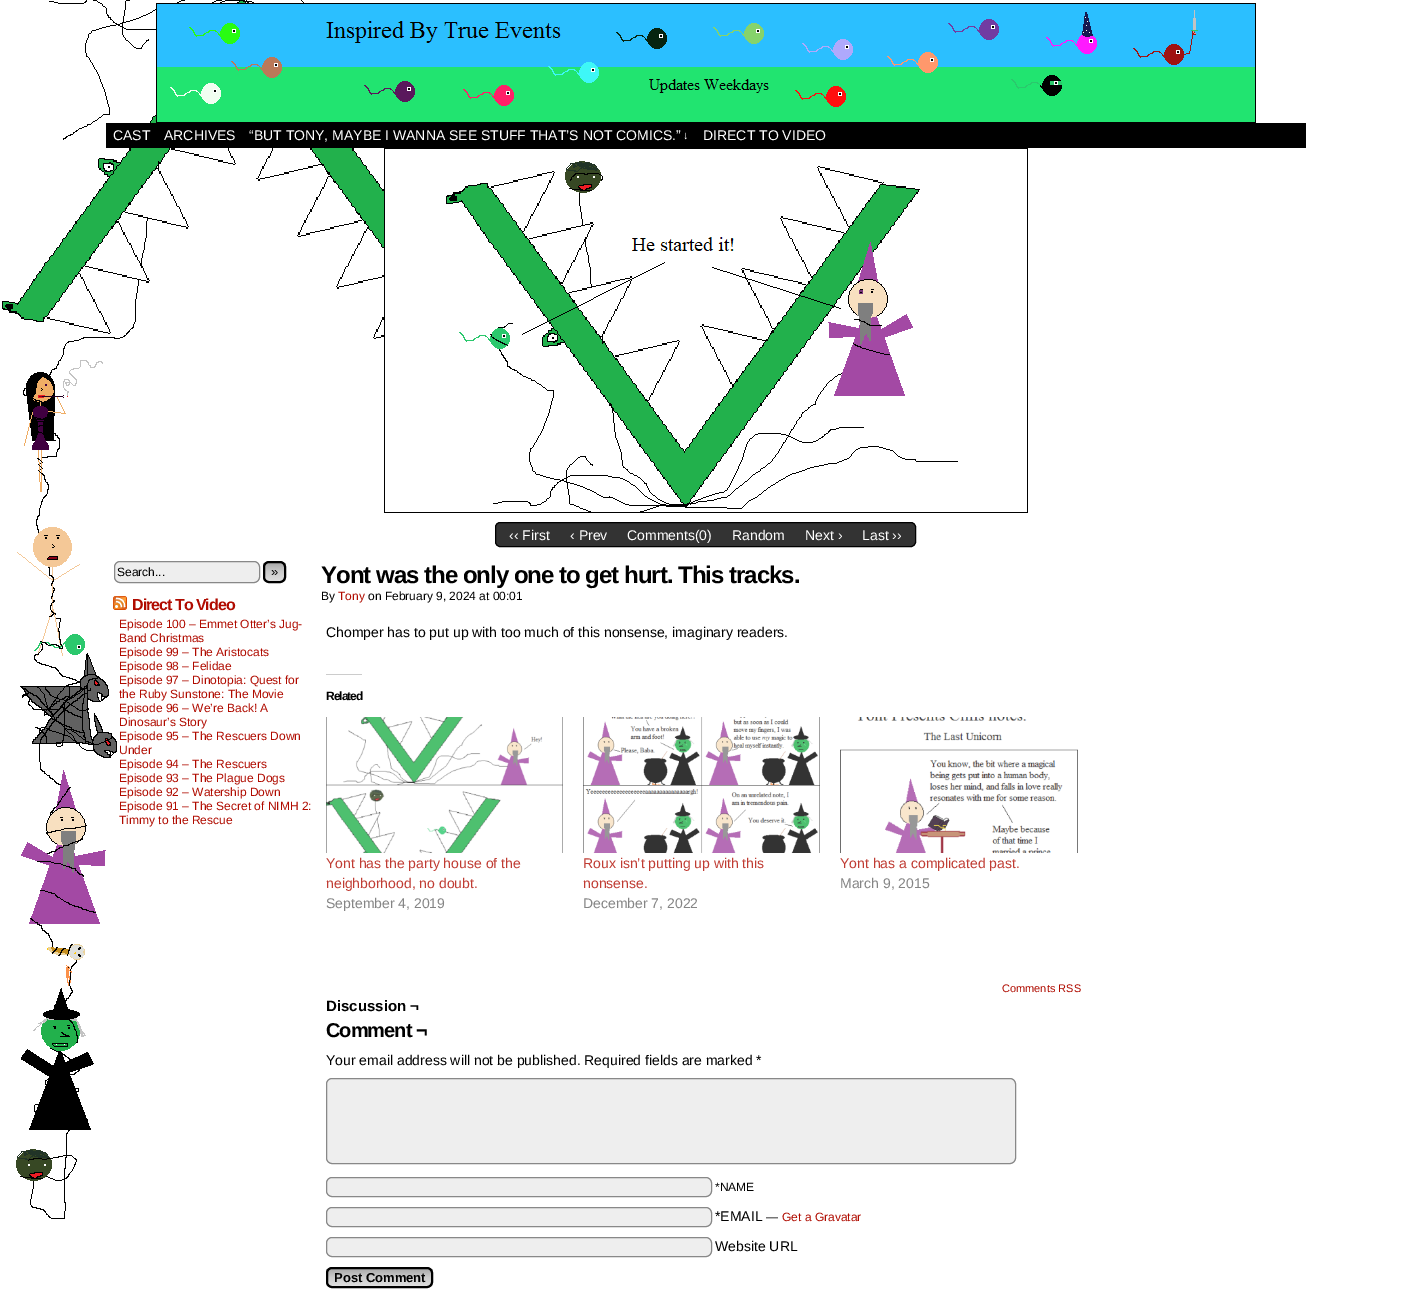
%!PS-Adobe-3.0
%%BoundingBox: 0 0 1411 1302
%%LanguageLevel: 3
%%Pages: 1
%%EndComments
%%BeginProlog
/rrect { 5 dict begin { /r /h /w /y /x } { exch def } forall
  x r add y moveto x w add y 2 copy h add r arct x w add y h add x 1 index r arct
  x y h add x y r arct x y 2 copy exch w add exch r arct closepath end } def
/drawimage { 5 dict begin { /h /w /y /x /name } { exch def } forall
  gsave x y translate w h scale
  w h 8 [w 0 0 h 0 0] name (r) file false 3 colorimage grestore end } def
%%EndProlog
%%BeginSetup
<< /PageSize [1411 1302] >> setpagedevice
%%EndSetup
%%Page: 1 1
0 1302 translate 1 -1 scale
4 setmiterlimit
1 setgray
0 0 1411 1302 rectfill
(images/1.raw) 2 0 509 1219 drawimage
(images/2.raw) 156 3 1100 120 drawimage
0 setgray
106 123 1200 25 rectfill
(images/3.raw) 384 148 644 365 drawimage
0.2 setgray
495.5 522.5 420 24 4.5 rrect gsave fill grestore
0 setgray
stroke
0.933 setgray
114.5 561.5 145 21 5.5 rrect gsave fill grestore
0.533 setgray
stroke
gsave
263 561 23 22 6 rrect clip newpath
gsave newpath 263 563 moveto 286 563 lineto 286 581 lineto 263 581 lineto closepath clip newpath
<< /ShadingType 2 /ColorSpace /DeviceRGB /Coords [275 563 275 581] /Extend [true true] /Function << /FunctionType 3 /Domain [0 1] /Functions [<< /FunctionType 2 /Domain [0 1] /C0 [0.667 0.667 0.667] /C1 [0.8 0.8 0.8] /N 1 >> << /FunctionType 2 /Domain [0 1] /C0 [0.8 0.8 0.8] /C1 [0.867 0.867 0.867] /N 1 >>] /Bounds [0.5] /Encode [0 1 0 1] >> >> shfill grestore
grestore
0 setgray
2 setlinewidth
264 562 21 20 5 rrect stroke
(images/4.raw) 113 596 14 14 drawimage
0.8 setgray
326 674 36 1 rectfill
(images/5.raw) 326 717 237 136 drawimage
(images/6.raw) 583 717 237 136 drawimage
(images/7.raw) 840 717 238 136 drawimage
0.933 setgray
326.5 1078.5 689 85 5.5 rrect gsave fill grestore
0.533 setgray
1 setlinewidth
stroke
0.933 setgray
326.5 1177.5 385 19 5.5 rrect gsave fill grestore
0.533 setgray
stroke
0.933 setgray
326.5 1207.5 385 19 5.5 rrect gsave fill grestore
0.533 setgray
stroke
0.933 setgray
326.5 1237.5 385 19 5.5 rrect gsave fill grestore
0.533 setgray
stroke
gsave
326 1267 107 21 6 rrect clip newpath
gsave newpath 326 1269 moveto 433 1269 lineto 433 1286 lineto 326 1286 lineto closepath clip newpath
<< /ShadingType 2 /ColorSpace /DeviceRGB /Coords [380 1269 380 1286] /Extend [true true] /Function << /FunctionType 3 /Domain [0 1] /Functions [<< /FunctionType 2 /Domain [0 1] /C0 [0.667 0.667 0.667] /C1 [0.8 0.8 0.8] /N 1 >> << /FunctionType 2 /Domain [0 1] /C0 [0.8 0.8 0.8] /C1 [0.867 0.867 0.867] /N 1 >>] /Bounds [0.5] /Encode [0 1 0 1] >> >> shfill grestore
grestore
0 setgray
2 setlinewidth
327 1268 105 19 5 rrect stroke
/LiberationSans-Regular [14 0 0 -14 0 0] selectfont
1 setgray
113 140 moveto (CAST) show
164 140 moveto (ARCHIVES) show
249 140 moveto (“BUT TONY, MAYBE I WANNA SEE STUFF THAT’S NOT COMICS.”) show
/LiberationSans-Regular [11 0 0 -11 0 0] selectfont
683 139 moveto (↓) show
/LiberationSans-Regular [14 0 0 -14 0 0] selectfont
703 140 moveto (DIRECT TO VIDEO) show
509 540 moveto (‹‹ First) show
570 540 moveto (‹ Prev) show
627 540 moveto (Comments\(0\)) show
732 540 moveto (Random) show
805 540 moveto (Next ›) show
862 540 moveto (Last ››) show
/LiberationSans-Regular [12 0 0 -12 0 0] selectfont
0 setgray
117 576 moveto (Search...) show
/LiberationSans-Regular [13 0 0 -13 0 0] selectfont
271 576 moveto (») show
/LiberationSans-Bold [16 0 0 -16 0 0] selectfont
0.69 0.043 0 setrgbcolor
132 610 moveto -1 0 (Direct To Video) ashow
/LiberationSans-Regular [12 0 0 -12 0 0] selectfont
119 628 moveto (Episode 100 – Emmet Otter’s Jug-) show
119 642 moveto (Band Christmas) show
119 656 moveto (Episode 99 – The Aristocats) show
119 670 moveto (Episode 98 – Felidae) show
119 684 moveto (Episode 97 – Dinotopia: Quest for) show
119 698 moveto (the Ruby Sunstone: The Movie) show
119 712 moveto (Episode 96 – We’re Back! A) show
119 726 moveto (Dinosaur’s Story) show
119 740 moveto (Episode 95 – The Rescuers Down) show
119 754 moveto (Under) show
119 768 moveto (Episode 94 – The Rescuers) show
119 782 moveto (Episode 93 – The Plague Dogs) show
119 796 moveto (Episode 92 – Watership Down) show
119 810 moveto (Episode 91 – The Secret of NIMH 2:) show
119 824 moveto (Timmy to the Rescue) show
/LiberationSans-Bold [24 0 0 -24 0 0] selectfont
0 setgray
321 583 moveto -1 0 (Yont was the only one to get hurt. This tracks.) ashow
/LiberationSans-Regular [12 0 0 -12 0 0] selectfont
321 600 moveto (By) show
0.69 0.043 0 setrgbcolor
338 600 moveto (Tony) show
0 setgray
368 600 moveto (on February 9, 2024 at 00:01) show
/LiberationSans-Regular [14 0 0 -14 0 0] selectfont
326 637 moveto (Chomper has to put up with too much of this nonsense, imaginary readers.) show
/LiberationSans-Bold [12 0 0 -12 0 0] selectfont
326 700 moveto -1 0 (Related) ashow
/LiberationSans-Regular [14 0 0 -14 0 0] selectfont
0.753 0.235 0.2 setrgbcolor
326 868 moveto (Yont has the party house of the) show
326 888 moveto (neighborhood, no doubt.) show
0.522 setgray
326 908 moveto (September 4, 2019) show
0.753 0.235 0.2 setrgbcolor
583 868 moveto (Roux isn’t putting up with this) show
583 888 moveto (nonsense.) show
0.522 setgray
583 908 moveto (December 7, 2022) show
0.753 0.235 0.2 setrgbcolor
840 868 moveto (Yont has a complicated past.) show
0.522 setgray
840 888 moveto (March 9, 2015) show
/LiberationSans-Regular [11 0 0 -11 0 0] selectfont
0.69 0.043 0 setrgbcolor
1002 992 moveto (Comments RSS) show
/LiberationSans-Bold [15 0 0 -15 0 0] selectfont
0 setgray
326 1011 moveto (Discussion ¬) show
/LiberationSans-Bold [20 0 0 -20 0 0] selectfont
326 1037 moveto -1 0 (Comment ¬) ashow
/LiberationSans-Regular [14 0 0 -14 0 0] selectfont
326 1065 moveto (Your email address will not be published. Required fields are marked *) show
/LiberationSans-Regular [12 0 0 -12 0 0] selectfont
715 1191 moveto (*NAME) show
/LiberationSans-Regular [14 0 0 -14 0 0] selectfont
715 1221 moveto (*EMAIL) show
/LiberationSans-Regular [12 0 0 -12 0 0] selectfont
766 1221 moveto (—) show
0.69 0.043 0 setrgbcolor
782 1221 moveto (Get a Gravatar) show
/LiberationSans-Regular [14 0 0 -14 0 0] selectfont
0 setgray
715 1251 moveto (Website URL) show
/LiberationSans-Bold [13 0 0 -13 0 0] selectfont
334 1282 moveto (Post Comment) show
showpage
%%EOF
